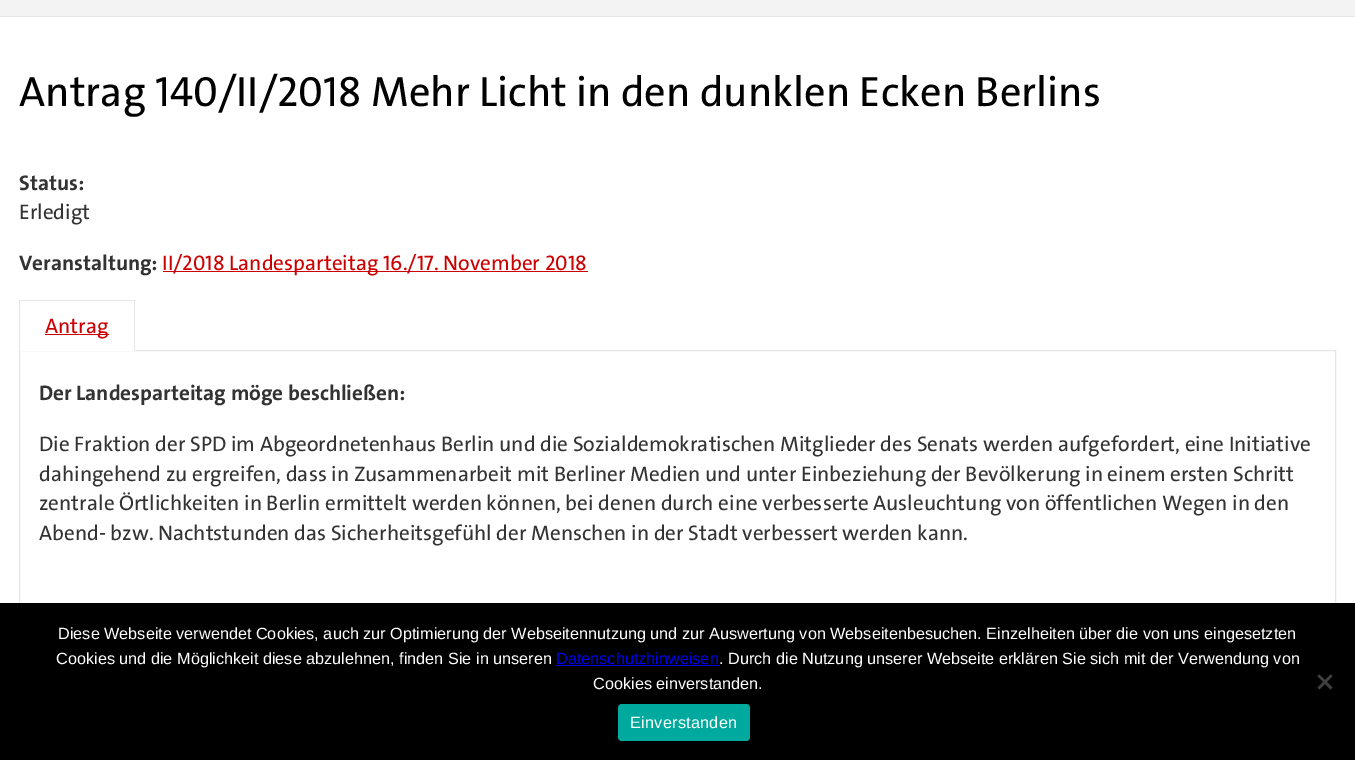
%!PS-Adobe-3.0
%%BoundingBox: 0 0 1355 760
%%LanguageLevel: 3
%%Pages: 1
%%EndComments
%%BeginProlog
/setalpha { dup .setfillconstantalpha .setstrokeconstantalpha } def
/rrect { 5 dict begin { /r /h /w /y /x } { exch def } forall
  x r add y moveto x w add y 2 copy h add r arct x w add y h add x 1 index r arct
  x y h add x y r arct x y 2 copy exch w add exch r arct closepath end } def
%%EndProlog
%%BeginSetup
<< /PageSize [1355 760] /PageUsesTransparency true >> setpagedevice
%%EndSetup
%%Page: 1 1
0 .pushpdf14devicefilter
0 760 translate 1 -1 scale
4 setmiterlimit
1 setgray
0 0 1355 760 rectfill
0.953 setgray
0 0 1355 16 rectfill
0.898 setgray
0 16 1355 1 rectfill
0.8 0 0 setrgbcolor
163 271 425 1 rectfill
0.902 setgray
19.5 350.5 1316 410 rectstroke
1 setgray
19 350 116 1 rectfill
0.902 setgray
newpath 19 300 moveto 135 300 lineto 134 301 lineto 20 301 lineto closepath fill
0.1 setalpha
0 setgray
newpath 135 300 moveto 135 351 lineto 134 351 lineto 134 301 lineto closepath fill
newpath 19 351 moveto 19 300 lineto 20 301 lineto 20 351 lineto closepath fill
1 setalpha
0.8 0 0 setrgbcolor
45 334 64 1 rectfill
0 setgray
0 603 1355 157 rectfill
0 0 0.933 setrgbcolor
556 665 163 1 rectfill
0.251 setgray
newpath 1330.5 674.5 moveto 1332.5 676 lineto 1319.5 689.5 lineto 1317.5 687.5 lineto closepath fill
newpath 1317.5 676 moveto 1319.5 674.5 lineto 1332.5 687.5 lineto 1330.5 689.5 lineto closepath fill
0 0.663 0.616 setrgbcolor
618 704 132 37 4 rrect fill
/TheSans-Medium [42.5 0 0 -42.5 0 0] selectfont
0 setgray
19 106 moveto (Antrag 140/II/2018 Mehr Licht in den dunklen Ecken Berlins) show
/TheSans-Bold [21.25 0 0 -21.25 0 0] selectfont
0.2 setgray
19 190 moveto (Status:) show
/TheSans-Medium [21.25 0 0 -21.25 0 0] selectfont
19 219 moveto (Erledigt) show
/TheSans-Bold [21.25 0 0 -21.25 0 0] selectfont
19 270 moveto (Veranstaltung:) show
/TheSans-Medium [21.25 0 0 -21.25 0 0] selectfont
0.8 0 0 setrgbcolor
162 270 moveto (II/2018 Landesparteitag 16./17. November 2018) show
45 333 moveto (Antrag) show
/TheSans-Bold [21.25 0 0 -21.25 0 0] selectfont
0.2 setgray
39 400 moveto (Der Landesparteitag möge beschließen:) show
/TheSans-Medium [21.25 0 0 -21.25 0 0] selectfont
39 451 moveto (Die Fraktion der SPD im Abgeordnetenhaus Berlin und die Sozialdemokratischen Mitglieder des Senats werden aufgefordert, eine Initiative) show
39 481 moveto (dahingehend zu ergreifen, dass in Zusammenarbeit mit Berliner Medien und unter Einbeziehung der Bevölkerung in einem ersten Schritt) show
39 510 moveto (zentrale Örtlichkeiten in Berlin ermittelt werden können, bei denen durch eine verbesserte Ausleuchtung von öffentlichen Wegen in den) show
39 540 moveto (Abend- bzw. Nachtstunden das Sicherheitsgefühl der Menschen in der Stadt verbessert werden kann.) show
/LiberationSans-Regular [16.25 0 0 -16.25 0 0] selectfont
1 setgray
58 639 moveto (Diese Webseite verwendet Cookies, auch zur Optimierung der Webseitennutzung und zur Auswertung von Webseitenbesuchen. Einzelheiten über die von uns eingesetzten) show
56 664 moveto (Cookies und die Möglichkeit diese abzulehnen, finden Sie in unseren) show
0 0 0.933 setrgbcolor
556 664 moveto (Datenschutzhinweisen) show
1 setgray
719 664 moveto (. Durch die Nutzung unserer Webseite erklären Sie sich mit der Verwendung von) show
593 689 moveto (Cookies einverstanden.) show
630 728 moveto 0.25 0 (Einverstanden) ashow
.poppdf14devicefilter showpage
%%EOF
